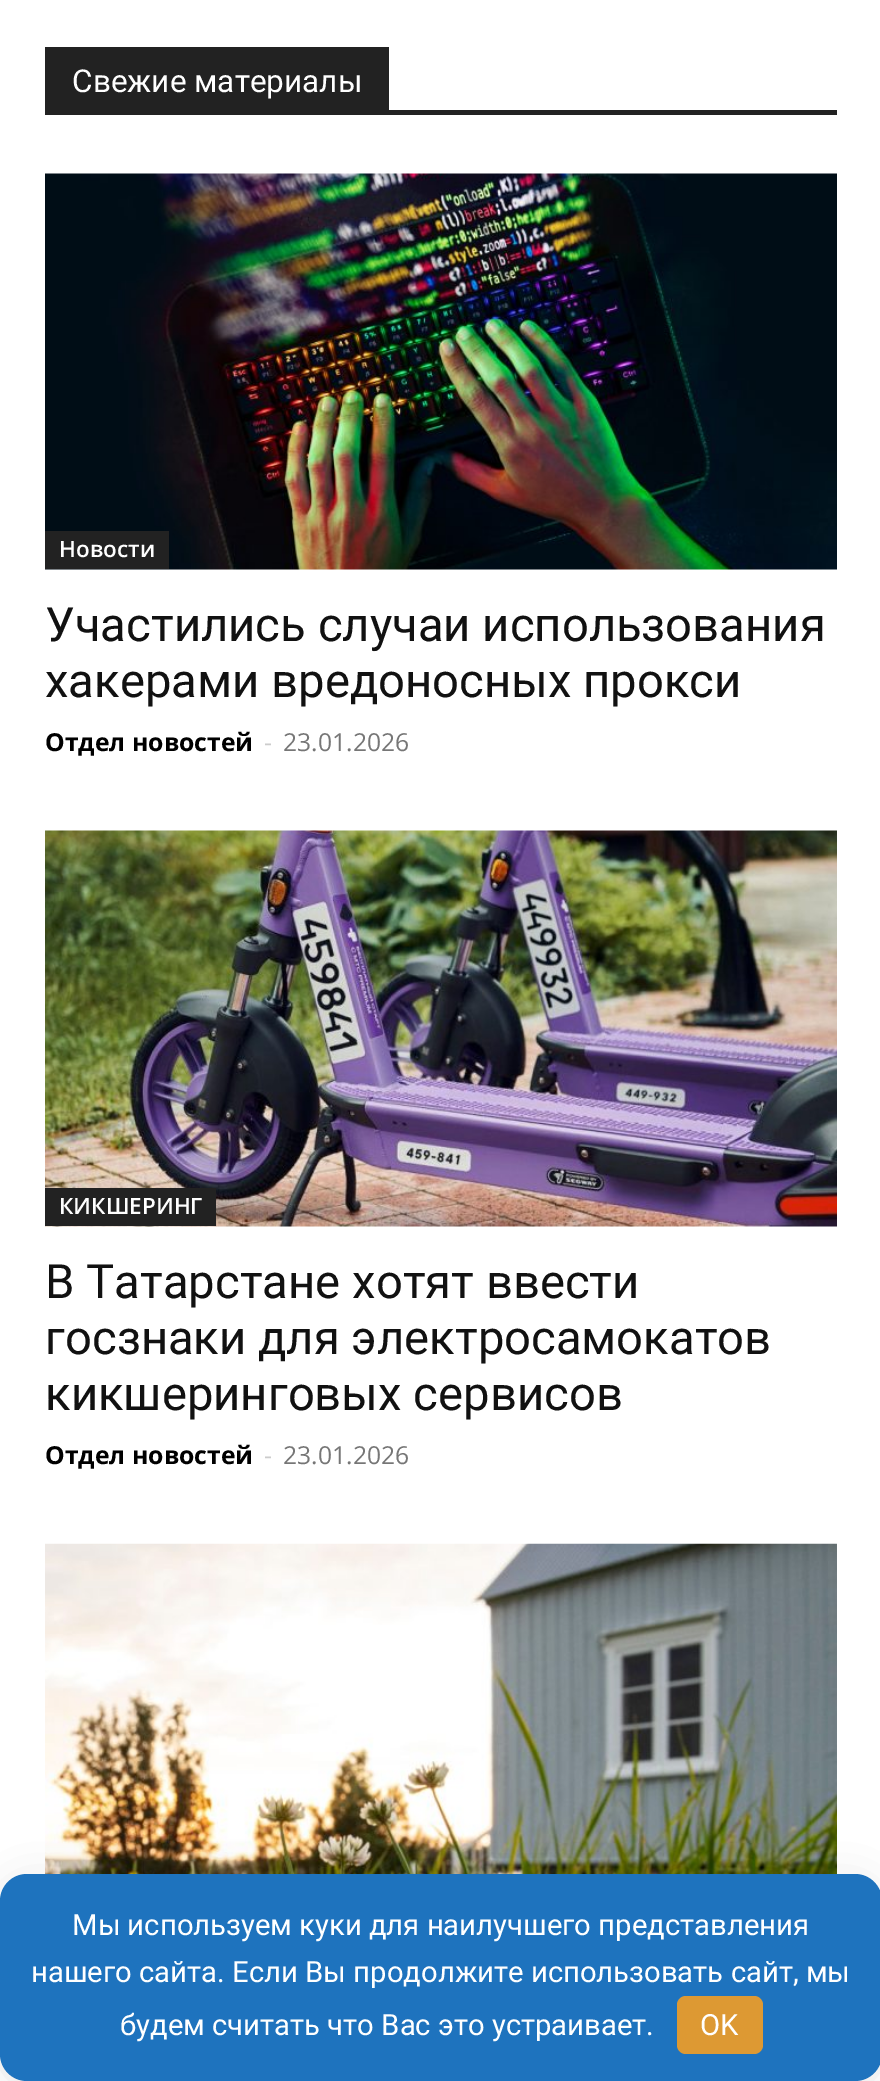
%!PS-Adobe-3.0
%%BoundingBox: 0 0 880 2081
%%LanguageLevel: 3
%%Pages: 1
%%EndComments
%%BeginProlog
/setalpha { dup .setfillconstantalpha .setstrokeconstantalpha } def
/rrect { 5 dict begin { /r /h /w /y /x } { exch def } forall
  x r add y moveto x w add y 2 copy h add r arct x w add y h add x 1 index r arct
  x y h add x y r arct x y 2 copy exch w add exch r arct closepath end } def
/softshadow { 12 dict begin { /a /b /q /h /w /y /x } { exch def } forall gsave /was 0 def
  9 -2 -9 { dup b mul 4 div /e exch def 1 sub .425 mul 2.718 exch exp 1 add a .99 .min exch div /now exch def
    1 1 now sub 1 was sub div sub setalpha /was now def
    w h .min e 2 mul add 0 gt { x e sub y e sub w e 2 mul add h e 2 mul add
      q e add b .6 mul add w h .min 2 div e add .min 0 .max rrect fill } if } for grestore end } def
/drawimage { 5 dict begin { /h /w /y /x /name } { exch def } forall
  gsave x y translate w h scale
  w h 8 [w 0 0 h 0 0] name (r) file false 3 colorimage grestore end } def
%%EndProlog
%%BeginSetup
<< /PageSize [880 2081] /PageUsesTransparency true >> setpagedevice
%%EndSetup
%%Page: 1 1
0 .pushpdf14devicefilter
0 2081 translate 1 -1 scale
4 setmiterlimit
1 setgray
0 0 880 2081 rectfill
0.133 setgray
45 110 792 5 rectfill
45 47 344 63 rectfill
(images/1.raw) 45 173 792 397 drawimage
45 531 124 38 rectfill
(images/2.raw) 45 830 792 397 drawimage
45 1188 171 38 rectfill
(images/3.raw) 45 1543 792 331 drawimage
0.161 0.173 0.22 setrgbcolor
11 1892 860 185 16 22.5 0.2 softshadow
0.118 0.451 0.745 setrgbcolor
0 1874 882 207 27 rrect fill
0.867 0.6 0.2 setrgbcolor
677 1996 86 58 9 rrect fill
/Roboto-Regular [31.5 0 0 -31.5 0 0] selectfont
1 setgray
72 92 moveto (Свежие материалы) show
/OpenSans-SemiBold [22.5 0 0 -22.5 0 0] selectfont
59 557 moveto (Новости) show
/Roboto-Regular [47.25 0 0 -47.25 0 0] selectfont
0.067 setgray
45 641 moveto (Участились случаи использования) show
45 697 moveto (хакерами вредоносных прокси) show
/OpenSans-Bold [24.75 0 0 -24.75 0 0] selectfont
0 setgray
45 751 moveto (Отдел новостей) show
/OpenSans-Regular [24.75 0 0 -24.75 0 0] selectfont
0.8 setgray
264 751 moveto (-) show
0.463 setgray
283 751 moveto (23.01.2026) show
/OpenSans-SemiBold [22.5 0 0 -22.5 0 0] selectfont
1 setgray
59 1214 moveto (КИКШЕРИНГ) show
/Roboto-Regular [47.25 0 0 -47.25 0 0] selectfont
0.067 setgray
45 1298 moveto (В Татарстане хотят ввести) show
45 1354 moveto (госзнаки для электросамокатов) show
45 1410 moveto (кикшеринговых сервисов) show
/OpenSans-Bold [24.75 0 0 -24.75 0 0] selectfont
0 setgray
45 1464 moveto (Отдел новостей) show
/OpenSans-Regular [24.75 0 0 -24.75 0 0] selectfont
0.8 setgray
264 1464 moveto (-) show
0.463 setgray
283 1464 moveto (23.01.2026) show
/Roboto-Regular [29.25 0 0 -29.25 0 0] selectfont
1 setgray
72 1935 moveto (Мы используем куки для наилучшего представления) show
31 1982 moveto (нашего сайта. Если Вы продолжите использовать сайт, мы) show
120 2035 moveto (будем считать что Вас это устраивает.) show
700 2035 moveto (OK) show
.poppdf14devicefilter showpage
%%EOF
